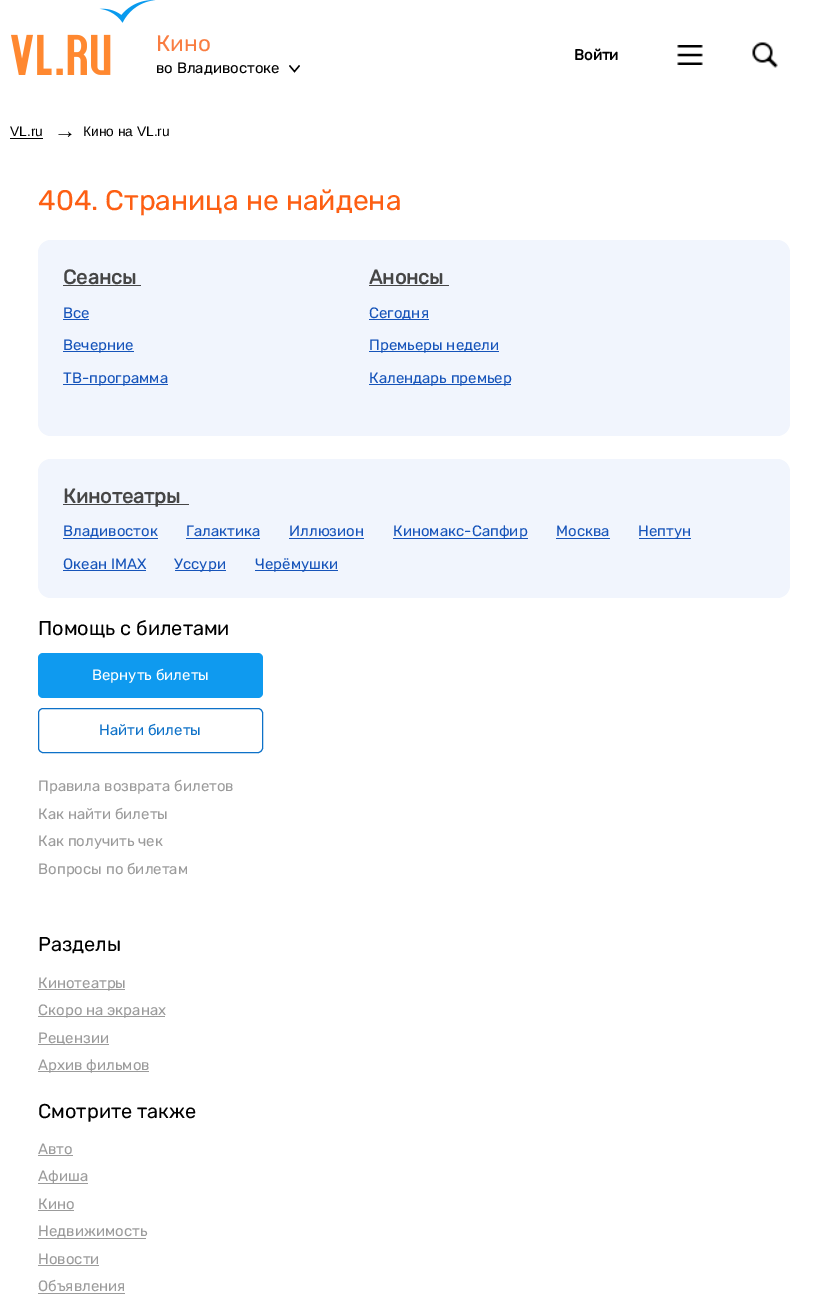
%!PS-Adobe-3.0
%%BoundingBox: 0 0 827 1308
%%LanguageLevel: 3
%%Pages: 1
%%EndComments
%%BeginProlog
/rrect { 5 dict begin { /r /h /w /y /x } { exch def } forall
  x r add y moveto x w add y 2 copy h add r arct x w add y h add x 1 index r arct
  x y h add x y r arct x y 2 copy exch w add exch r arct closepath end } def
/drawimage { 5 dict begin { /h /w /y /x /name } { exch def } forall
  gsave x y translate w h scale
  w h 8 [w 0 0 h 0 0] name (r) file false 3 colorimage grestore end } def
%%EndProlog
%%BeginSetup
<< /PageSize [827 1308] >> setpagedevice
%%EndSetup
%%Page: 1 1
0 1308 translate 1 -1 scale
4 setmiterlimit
1 setgray
0 0 827 1308 rectfill
(images/1.raw) 11 0 145 75 drawimage
0 setgray
1.3 setlinewidth
newpath 289.5 65.5 moveto 294.5 71.5 lineto 299.5 65.5 lineto stroke
(images/2.raw) 677 45 26 20 drawimage
(images/3.raw) 752 42 26 26 drawimage
10 138 33 1 rectfill
0.945 0.961 0.992 setrgbcolor
38 240 752 196 13 rrect fill
0.275 setgray
63 285 78 1 rectfill
0.086 0.329 0.729 setrgbcolor
63 319 26 1 rectfill
63 351 71 1 rectfill
63 384 105 1 rectfill
0.275 setgray
369 285 80 1 rectfill
0.086 0.329 0.729 setrgbcolor
369 319 60 1 rectfill
369 351 130 1 rectfill
369 384 142 1 rectfill
0.945 0.961 0.992 setrgbcolor
38 459 752 139 13 rrect fill
0.275 setgray
63 504 126 1 rectfill
0.086 0.329 0.729 setrgbcolor
63 538 95 1 rectfill
186 538 74 1 rectfill
289 538 75 1 rectfill
393 538 135 1 rectfill
556 538 54 1 rectfill
639 538 52 1 rectfill
63 570 83 1 rectfill
175 570 51 1 rectfill
255 570 83 1 rectfill
0.059 0.604 0.937 setrgbcolor
38 653 225 45 5 rrect fill
0.051 0.443 0.784 setrgbcolor
1 setlinewidth
38.5 708.5 224 44 4.5 rrect stroke
0.608 setgray
38 989 87 1 rectfill
38 1016 127 1 rectfill
38 1044 71 1 rectfill
38 1071 111 1 rectfill
38 1155 35 1 rectfill
38 1183 50 1 rectfill
38 1210 36 1 rectfill
38 1238 108 1 rectfill
38 1265 61 1 rectfill
38 1293 87 1 rectfill
/Rubik-Regular [22.5 0 0 -22.5 0 0] selectfont
0.976 0.49 0.255 setrgbcolor
156 51 moveto (Кино) show
/Rubik-Regular [15 0 0 -15 0 0] selectfont
0 setgray
156 73 moveto (во Владивостоке) show
/Rubik-Bold [15 0 0 -15 0 0] selectfont
574 60 moveto (Войти) show
/LiberationSans-Regular [13.75 0 0 -13.75 0 0] selectfont
10 136 moveto (VL.ru) show
/LiberationSans-Regular [22 0 0 -22 0 0] selectfont
54 138 moveto (→) show
/LiberationSans-Regular [13.75 0 0 -13.75 0 0] selectfont
83 136 moveto (Кино на VL.ru) show
/Rubik-Regular [28.3 0 0 -28.3 0 0] selectfont
0.992 0.373 0.075 setrgbcolor
38 210 moveto (404. Страница не найдена) show
/Rubik-Bold [20 0 0 -20 0 0] selectfont
0.275 setgray
63 284 moveto (Сеансы) show
/Rubik-Regular [15 0 0 -15 0 0] selectfont
0.086 0.329 0.729 setrgbcolor
63 318 moveto (Все) show
63 350 moveto (Вечерние) show
63 383 moveto (ТВ-программа) show
/Rubik-Bold [20 0 0 -20 0 0] selectfont
0.275 setgray
369 284 moveto (Анонсы) show
/Rubik-Regular [15 0 0 -15 0 0] selectfont
0.086 0.329 0.729 setrgbcolor
369 318 moveto (Сегодня) show
369 350 moveto (Премьеры недели) show
369 383 moveto (Календарь премьер) show
/Rubik-Bold [20 0 0 -20 0 0] selectfont
0.275 setgray
63 503 moveto (Кинотеатры) show
/Rubik-Regular [15 0 0 -15 0 0] selectfont
0.086 0.329 0.729 setrgbcolor
63 536 moveto (Владивосток) show
186 536 moveto (Галактика) show
289 536 moveto (Иллюзион) show
393 536 moveto (Киномакс-Сапфир) show
556 536 moveto (Москва) show
638 536 moveto (Нептун) show
63 569 moveto (Океан IMAX) show
174 569 moveto (Уссури) show
255 569 moveto (Черёмушки) show
/Rubik-Regular [20 0 0 -20 0 0] selectfont
0 setgray
38 635 moveto (Помощь с билетами) show
/Rubik-Regular [15 0 0 -15 0 0] selectfont
1 setgray
92 680 moveto (Вернуть билеты) show
0.051 0.443 0.784 setrgbcolor
99 735 moveto (Найти билеты) show
0.608 setgray
38 791 moveto (Правила возврата билетов) show
38 819 moveto (Как найти билеты) show
38 846 moveto (Как получить чек) show
38 874 moveto (Вопросы по билетам) show
/Rubik-Regular [20 0 0 -20 0 0] selectfont
0 setgray
38 951 moveto (Разделы) show
/Rubik-Regular [15 0 0 -15 0 0] selectfont
0.608 setgray
38 988 moveto (Кинотеатры) show
38 1015 moveto (Скоро на экранах) show
38 1043 moveto (Рецензии) show
38 1070 moveto (Архив фильмов) show
/Rubik-Regular [20 0 0 -20 0 0] selectfont
0 setgray
38 1118 moveto (Смотрите также) show
/Rubik-Regular [15 0 0 -15 0 0] selectfont
0.608 setgray
38 1154 moveto (Авто) show
38 1181 moveto (Афиша) show
38 1209 moveto (Кино) show
38 1236 moveto (Недвижимость) show
38 1264 moveto (Новости) show
38 1291 moveto (Объявления) show
showpage
%%EOF
